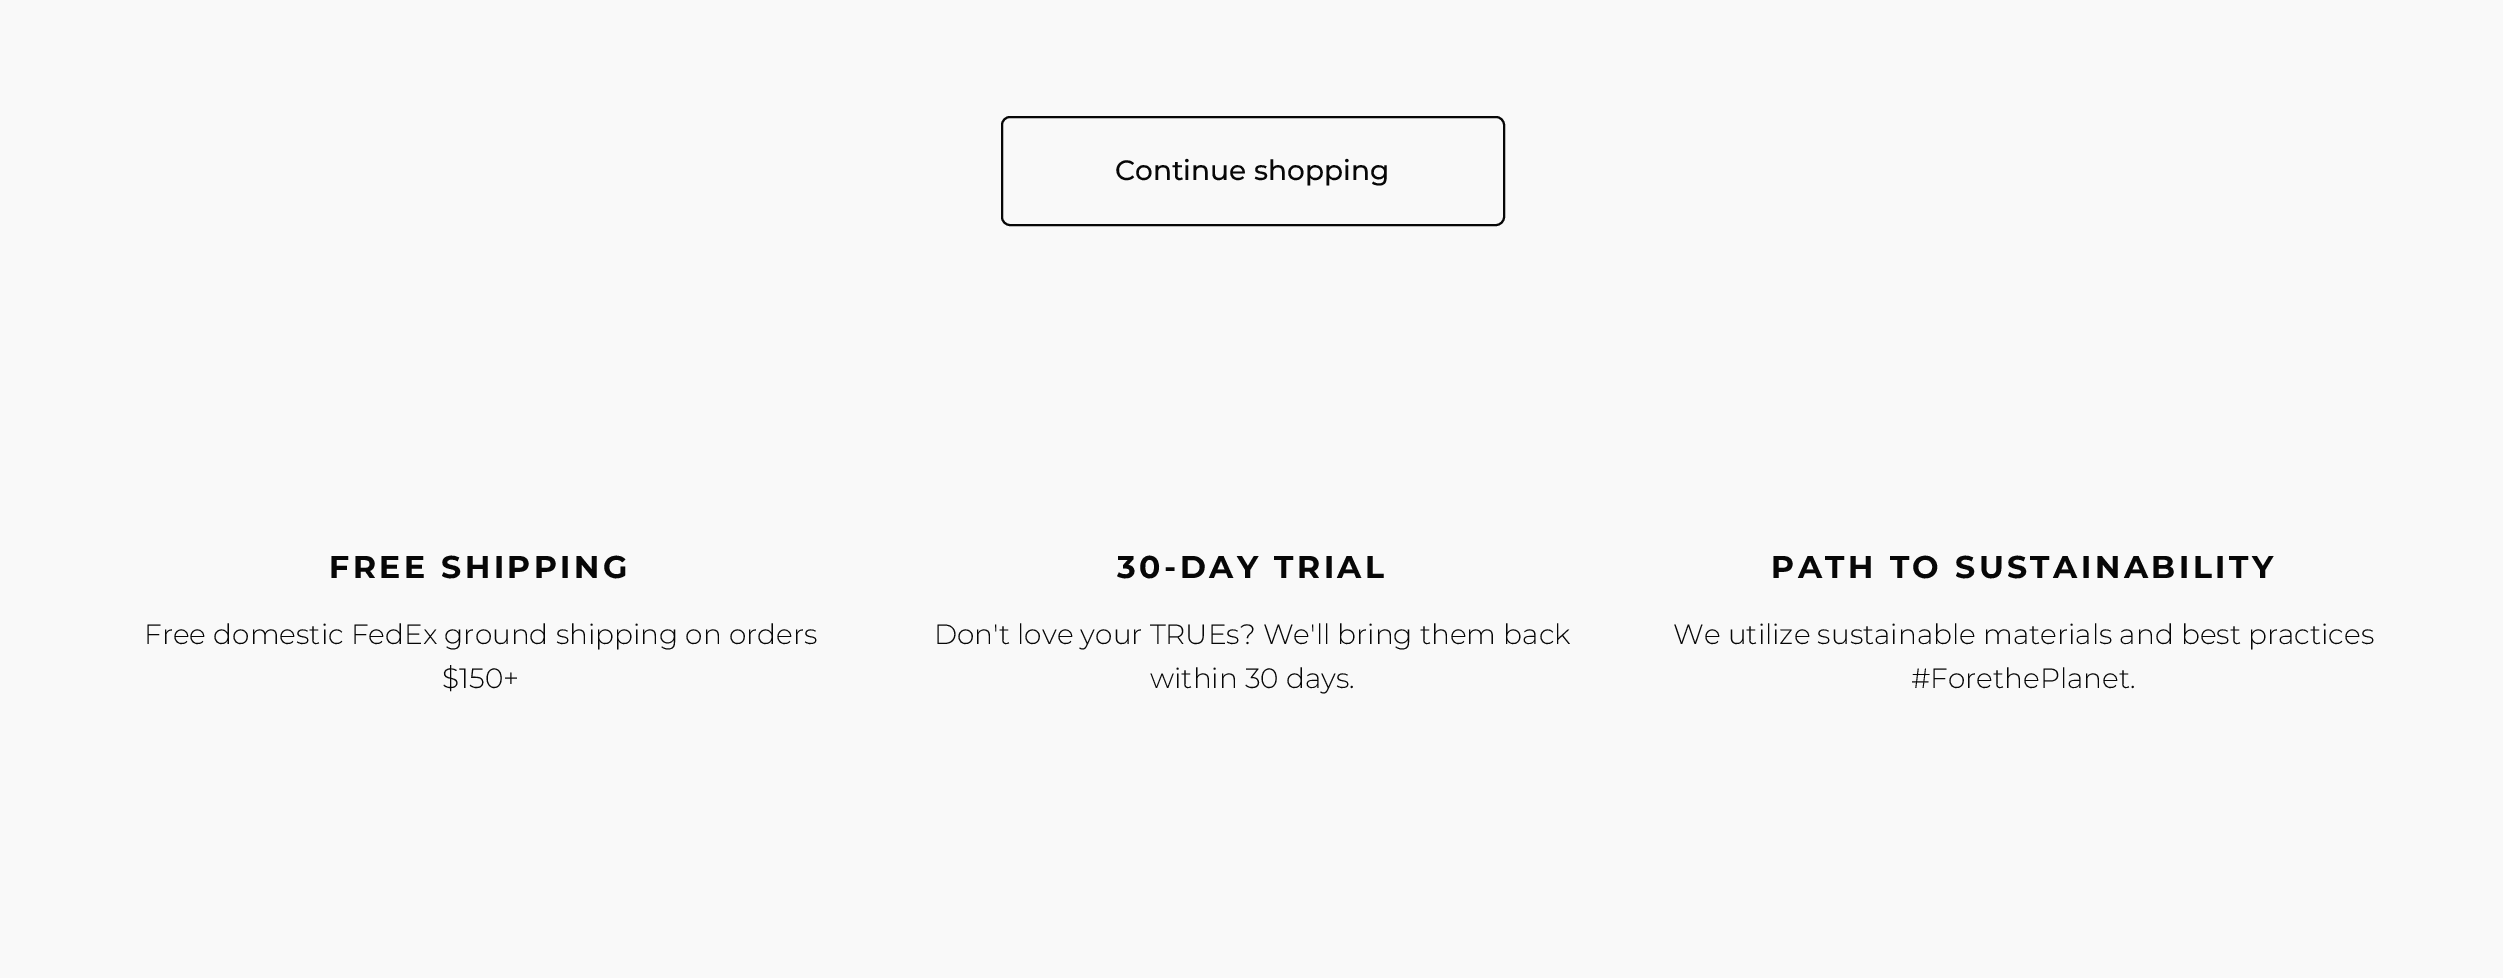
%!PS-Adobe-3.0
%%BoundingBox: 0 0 2503 978
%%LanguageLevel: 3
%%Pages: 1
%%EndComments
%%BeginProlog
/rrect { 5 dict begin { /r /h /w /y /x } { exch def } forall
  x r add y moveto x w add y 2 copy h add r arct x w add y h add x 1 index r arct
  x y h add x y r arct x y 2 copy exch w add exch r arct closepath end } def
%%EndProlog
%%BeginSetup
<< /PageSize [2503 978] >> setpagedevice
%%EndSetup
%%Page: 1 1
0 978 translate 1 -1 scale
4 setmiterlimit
0.976 setgray
0 0 2503 978 rectfill
0.027 setgray
2 setlinewidth
1002 117 502 108 8 rrect stroke
/Montserrat-Medium [28 0 0 -28 0 0] selectfont
1115 180 moveto (Continue shopping) show
/Montserrat-Bold [31.5 0 0 -31.5 0 0] selectfont
329 578 moveto 3.5 0 (FREE SHIPPING) ashow
/Montserrat-Light [28 0 0 -28 0 0] selectfont
144 644 moveto (Free domestic FedEx ground shipping on orders) show
442 688 moveto ($150+) show
/Montserrat-Bold [31.5 0 0 -31.5 0 0] selectfont
1117 578 moveto 3.5 0 (30-DAY TRIAL) ashow
/Montserrat-Light [28 0 0 -28 0 0] selectfont
934 644 moveto (Don't love your TRUEs? We'll bring them back) show
1150 688 moveto (within 30 days.) show
/Montserrat-Bold [31.5 0 0 -31.5 0 0] selectfont
1771 578 moveto 3.5 0 (PATH TO SUSTAINABILITY) ashow
/Montserrat-Light [28 0 0 -28 0 0] selectfont
1673 644 moveto (We utilize sustainable materials and best practices) show
1911 688 moveto (#ForethePlanet.) show
showpage
%%EOF
